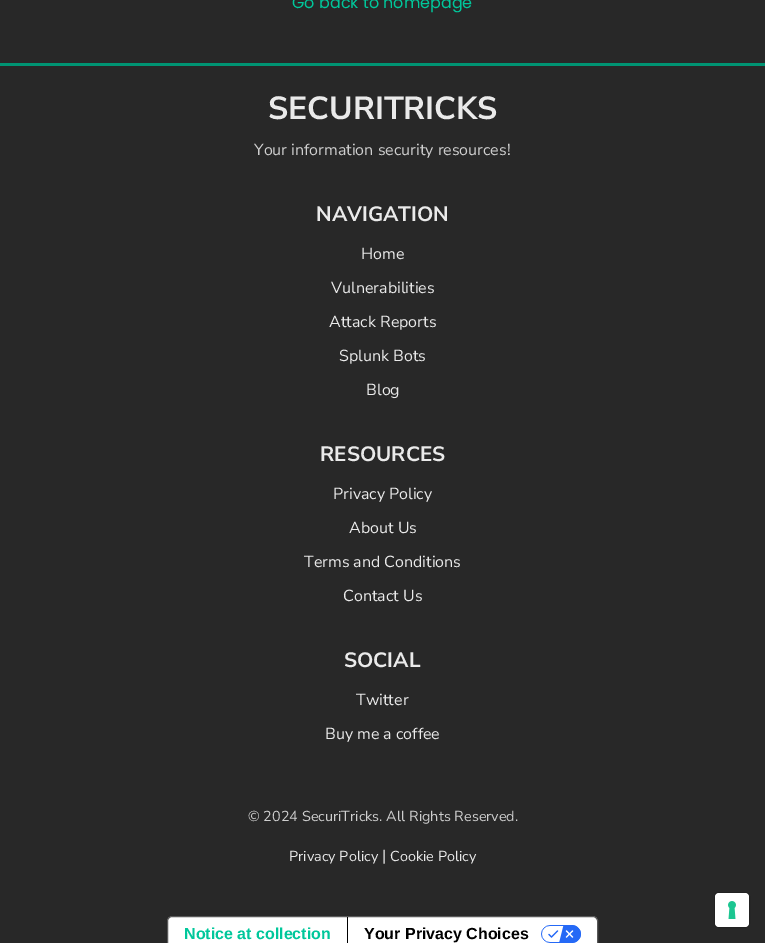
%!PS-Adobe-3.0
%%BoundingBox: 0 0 765 943
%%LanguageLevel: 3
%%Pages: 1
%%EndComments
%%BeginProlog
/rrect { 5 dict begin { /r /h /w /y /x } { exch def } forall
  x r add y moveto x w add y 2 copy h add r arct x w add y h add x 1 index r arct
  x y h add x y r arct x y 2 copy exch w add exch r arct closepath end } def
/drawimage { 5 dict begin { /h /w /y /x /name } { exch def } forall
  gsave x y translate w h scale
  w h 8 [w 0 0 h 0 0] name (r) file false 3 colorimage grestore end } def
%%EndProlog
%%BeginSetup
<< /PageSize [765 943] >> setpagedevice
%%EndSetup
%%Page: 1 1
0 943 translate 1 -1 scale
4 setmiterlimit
0.157 setgray
0 0 765 943 rectfill
0 0.58 0.451 setrgbcolor
0 63 765 3 rectfill
0.133 setgray
714.5 892.5 35 35 4.5 rrect stroke
1 setgray
715 893 34 34 4 rrect fill
(images/1.raw) 728 901 8 18 drawimage
167.5 916.5 430 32 4.5 rrect gsave fill grestore
0.349 setgray
stroke
0 setgray
347 917 1 26 rectfill
(images/2.raw) 541 925 40 18 drawimage
/Poppins-Regular [16 0 0 -16 0 0] selectfont
0 0.78 0.608 setrgbcolor
292 8 moveto (Go back to homepage) show
/NunitoSans-Bold [32 0 0 -32 0 0] selectfont
0.918 setgray
268 119 moveto (SECURITRICKS) show
/NunitoSans-Regular [16 0 0 -16 0 0] selectfont
0.812 setgray
254 155 moveto (Your information security resources!) show
/NunitoSans-Bold [20.75 0 0 -20.75 0 0] selectfont
0.918 setgray
316 221 moveto (NAVIGATION) show
/NunitoSans-Regular [16 0 0 -16 0 0] selectfont
361 259 moveto (Home) show
331 293 moveto (Vulnerabilities) show
329 327 moveto (Attack Reports) show
339 361 moveto (Splunk Bots) show
366 395 moveto (Blog) show
/NunitoSans-Bold [20.75 0 0 -20.75 0 0] selectfont
320 461 moveto (RESOURCES) show
/NunitoSans-Regular [16 0 0 -16 0 0] selectfont
333 499 moveto (Privacy Policy) show
349 533 moveto (About Us) show
304 567 moveto (Terms and Conditions) show
343 601 moveto (Contact Us) show
/NunitoSans-Bold [20.75 0 0 -20.75 0 0] selectfont
344 667 moveto (SOCIAL) show
/NunitoSans-Regular [16 0 0 -16 0 0] selectfont
356 705 moveto (Twitter) show
325 739 moveto (Buy me a coffee) show
/NunitoSans-Regular [14.4 0 0 -14.4 0 0] selectfont
0.812 setgray
248 821 moveto (© 2024 SecuriTricks. All Rights Reserved.) show
0.918 setgray
289 861 moveto (Privacy Policy) show
/NunitoSans-Regular [16 0 0 -16 0 0] selectfont
382 861 moveto (|) show
/NunitoSans-Regular [14.4 0 0 -14.4 0 0] selectfont
390 861 moveto (Cookie Policy) show
/LiberationSans-Bold [16 0 0 -16 0 0] selectfont
0 0.78 0.608 setrgbcolor
184 939 moveto (Notice at collection) show
0 setgray
364 939 moveto (Your Privacy Choices) show
showpage
%%EOF
